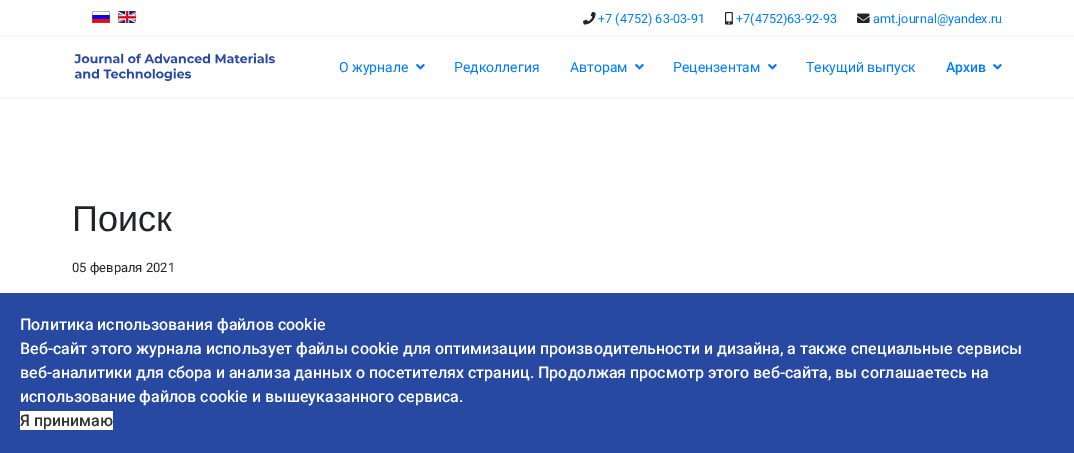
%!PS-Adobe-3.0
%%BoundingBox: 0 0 1074 453
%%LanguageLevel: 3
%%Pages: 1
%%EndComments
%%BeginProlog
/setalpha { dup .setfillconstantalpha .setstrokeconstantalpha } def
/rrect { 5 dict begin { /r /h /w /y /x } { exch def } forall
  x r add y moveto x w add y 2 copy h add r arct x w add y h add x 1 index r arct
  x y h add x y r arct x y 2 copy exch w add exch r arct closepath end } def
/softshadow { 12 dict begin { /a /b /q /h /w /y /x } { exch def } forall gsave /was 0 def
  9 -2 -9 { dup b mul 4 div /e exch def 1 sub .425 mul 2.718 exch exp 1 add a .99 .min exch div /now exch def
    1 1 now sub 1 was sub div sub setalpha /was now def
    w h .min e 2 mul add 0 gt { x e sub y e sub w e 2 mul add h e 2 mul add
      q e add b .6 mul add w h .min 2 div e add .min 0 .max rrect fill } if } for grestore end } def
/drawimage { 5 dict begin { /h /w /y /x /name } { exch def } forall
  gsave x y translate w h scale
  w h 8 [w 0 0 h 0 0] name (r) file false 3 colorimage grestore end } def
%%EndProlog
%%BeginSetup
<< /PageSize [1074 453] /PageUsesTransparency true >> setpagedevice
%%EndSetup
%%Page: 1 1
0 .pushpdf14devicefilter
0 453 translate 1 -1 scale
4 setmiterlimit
1 setgray
0 0 1074 453 rectfill
(images/1.raw) 92 11 18 12 drawimage
(images/2.raw) 118 11 18 12 drawimage
(images/3.raw) 583 12 13 13 drawimage
(images/4.raw) 725 12 8 13 drawimage
(images/5.raw) 857 13 13 10 drawimage
gsave
newpath 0 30 moveto 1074 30 lineto 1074 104 lineto 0 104 lineto closepath 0 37 moveto 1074 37 lineto 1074 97 lineto 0 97 lineto closepath eoclip newpath
0 setgray
0 37 1074 60 0 2 0.1 softshadow
grestore
(images/6.raw) 74 53 201 28 drawimage
(images/7.raw) 416 64 9 6 drawimage
(images/7.raw) 635 64 9 6 drawimage
(images/7.raw) 768 64 9 6 drawimage
(images/7.raw) 993 64 9 6 drawimage
0.153 0.286 0.631 setrgbcolor
0 293 1074 160 rectfill
1 setgray
20 411 93 19 rectfill
/Roboto-Regular [12.6 0 0 -12.6 0 0] selectfont
0 0.482 1 setrgbcolor
598 23 moveto (+7 \(4752\) 63-03-91) show
736 23 moveto (+7\(4752\)63-92-93) show
873 23 moveto (amt.journal@yandex.ru) show
/Roboto-Regular [14 0 0 -14 0 0] selectfont
339 72 moveto (О журнале) show
454 72 moveto (Редколлегия) show
570 72 moveto (Авторам) show
673 72 moveto (Рецензентам) show
806 72 moveto (Текущий выпуск) show
/Roboto-Medium [14 0 0 -14 0 0] selectfont
946 72 moveto (Архив) show
/LiberationSans-Regular [36 0 0 -36 0 0] selectfont
0.129 0.145 0.161 setrgbcolor
72 231 moveto (Поиск) show
/Roboto-Regular [13 0 0 -13 0 0] selectfont
72 272 moveto (05 февраля 2021) show
/Roboto-Medium [16 0 0 -16 0 0] selectfont
1 setgray
20 330 moveto (Политика использования файлов cookie) show
20 354 moveto (Веб-сайт этого журнала использует файлы cookie для оптимизации производительности и дизайна, а также специальные сервисы) show
20 378 moveto (веб-аналитики для сбора и анализа данных о посетителях страниц. Продолжая просмотр этого веб-сайта, вы соглашаетесь на) show
20 402 moveto (использование файлов cookie и вышеуказанного сервиса.) show
0.2 setgray
20 426 moveto (Я принимаю) show
.poppdf14devicefilter showpage
%%EOF
